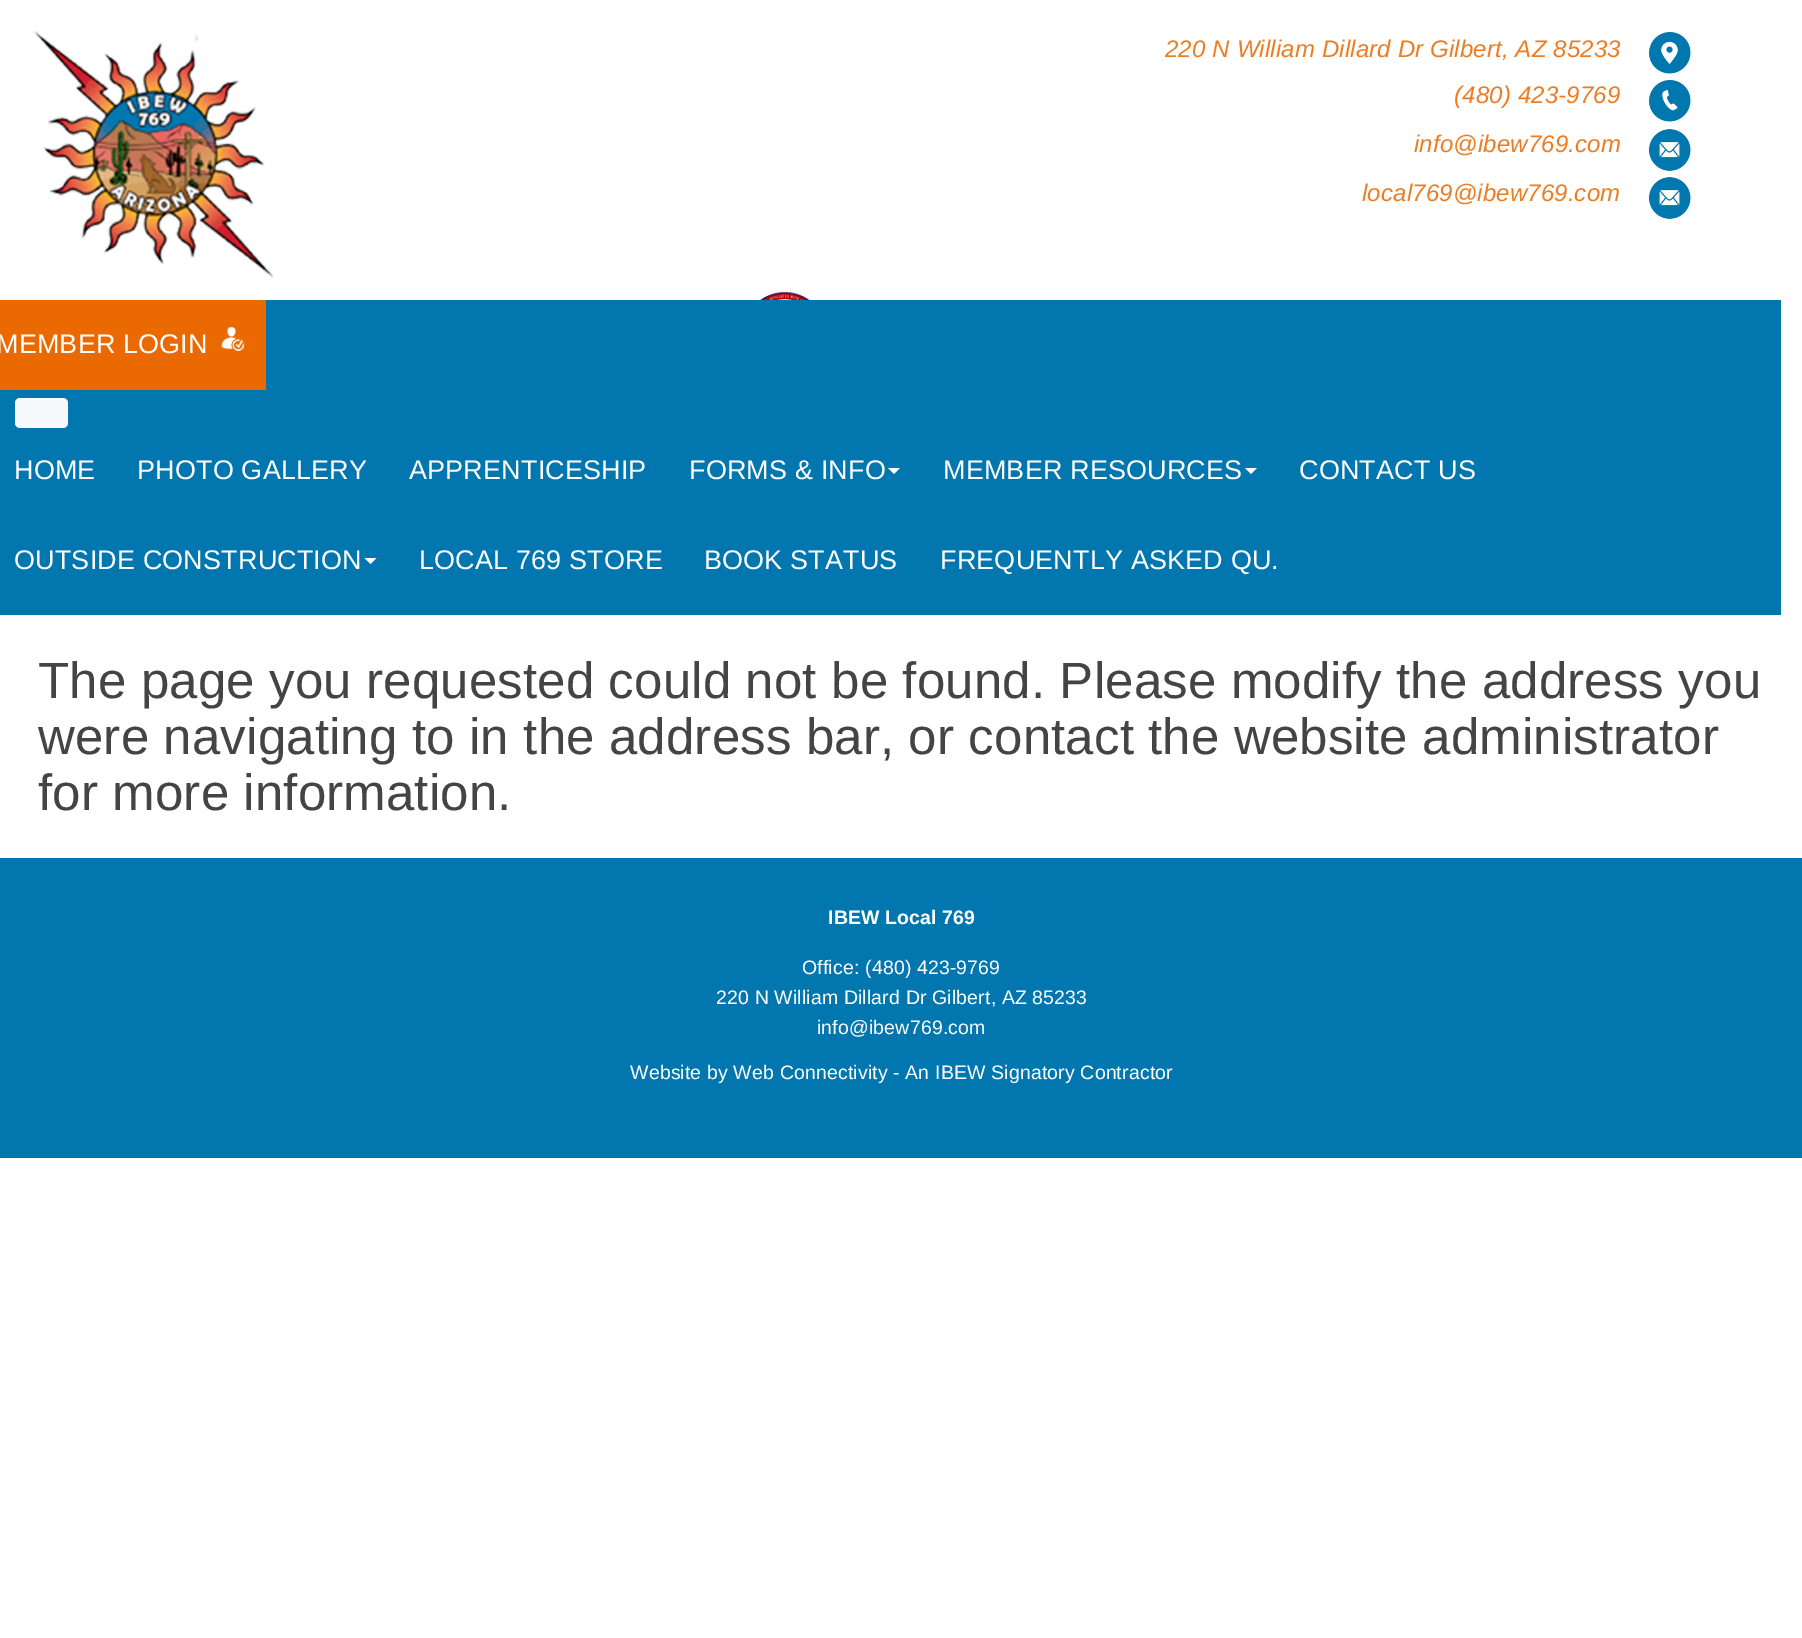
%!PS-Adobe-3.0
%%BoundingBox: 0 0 1802 1638
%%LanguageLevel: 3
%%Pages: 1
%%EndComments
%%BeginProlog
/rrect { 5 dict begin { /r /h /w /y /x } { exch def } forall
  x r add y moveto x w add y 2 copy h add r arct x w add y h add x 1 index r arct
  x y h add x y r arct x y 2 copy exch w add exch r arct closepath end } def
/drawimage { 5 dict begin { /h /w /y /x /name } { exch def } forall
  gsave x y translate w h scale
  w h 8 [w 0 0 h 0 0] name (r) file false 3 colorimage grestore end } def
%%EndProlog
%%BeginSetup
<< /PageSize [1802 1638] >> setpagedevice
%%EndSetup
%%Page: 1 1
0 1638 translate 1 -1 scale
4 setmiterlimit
1 setgray
0 0 1802 1638 rectfill
(images/1.raw) 33 31 241 247 drawimage
(images/2.raw) 760 291 50 9 drawimage
(images/3.raw) 1649 32 42 42 drawimage
(images/4.raw) 1649 80 42 42 drawimage
(images/5.raw) 1649 129 42 42 drawimage
(images/5.raw) 1649 177 42 42 drawimage
0.008 0.467 0.686 setrgbcolor
0 300 1781 315 rectfill
0.918 0.412 0 setrgbcolor
0 300 266 90 rectfill
(images/6.raw) 221 327 24 24 drawimage
0.973 0.976 0.98 setrgbcolor
15 398 53 30 5 rrect fill
1 setgray
newpath 888 468 moveto 900 468 lineto 894 474 lineto closepath fill
newpath 1245 468 moveto 1257 468 lineto 1251 474 lineto closepath fill
newpath 364.5 558 moveto 376.5 558 lineto 370.5 564 lineto closepath fill
0.008 0.467 0.686 setrgbcolor
0 858 1802 300 rectfill
/LiberationSans-Italic [24 0 0 -24 0 0] selectfont
0.929 0.49 0.133 setrgbcolor
1165 57 moveto 0.15 0 (220 N William Dillard Dr Gilbert, AZ 85233) ashow
1454 103 moveto 0.15 0 (\(480\) 423-9769) ashow
1414 152 moveto 0.15 0 (info@ibew769.com) ashow
1362 201 moveto 0.15 0 (local769@ibew769.com) ashow
/LiberationSans-Regular [27 0 0 -27 0 0] selectfont
1 setgray
-4 353 moveto 0.15 0 (MEMBER LOGIN) ashow
14 479 moveto 0.15 0 (HOME) ashow
137 479 moveto 0.15 0 (PHOTO GALLERY) ashow
409 479 moveto 0.15 0 (APPRENTICESHIP) ashow
689 479 moveto 0.15 0 (FORMS & INFO) ashow
943 479 moveto 0.15 0 (MEMBER RESOURCES) ashow
1299 479 moveto 0.15 0 (CONTACT US) ashow
14 569 moveto 0.15 0 (OUTSIDE CONSTRUCTION) ashow
419 569 moveto 0.15 0 (LOCAL 769 STORE) ashow
704 569 moveto 0.15 0 (BOOK STATUS) ashow
940 569 moveto 0.15 0 (FREQUENTLY ASKED QU.) ashow
/LiberationSans-Regular [51 0 0 -51 0 0] selectfont
0.267 setgray
38 698 moveto 0.15 0 (The page you requested could not be found. Please modify the address you) ashow
38 754 moveto 0.15 0 (were navigating to in the address bar, or contact the website administrator) ashow
38 810 moveto 0.15 0 (for more information.) ashow
/LiberationSans-Bold [19.5 0 0 -19.5 0 0] selectfont
1 setgray
828 924 moveto 0.15 0 (IBEW Local 769) ashow
/LiberationSans-Regular [19.5 0 0 -19.5 0 0] selectfont
802 974 moveto 0.15 0 (Office: \(480\) 423-9769) ashow
716 1004 moveto 0.15 0 (220 N William Dillard Dr Gilbert, AZ 85233) ashow
817 1034 moveto 0.15 0 (info@ibew769.com) ashow
630 1079 moveto 0.15 0 (Website by Web Connectivity - An IBEW Signatory Contractor) ashow
showpage
%%EOF
